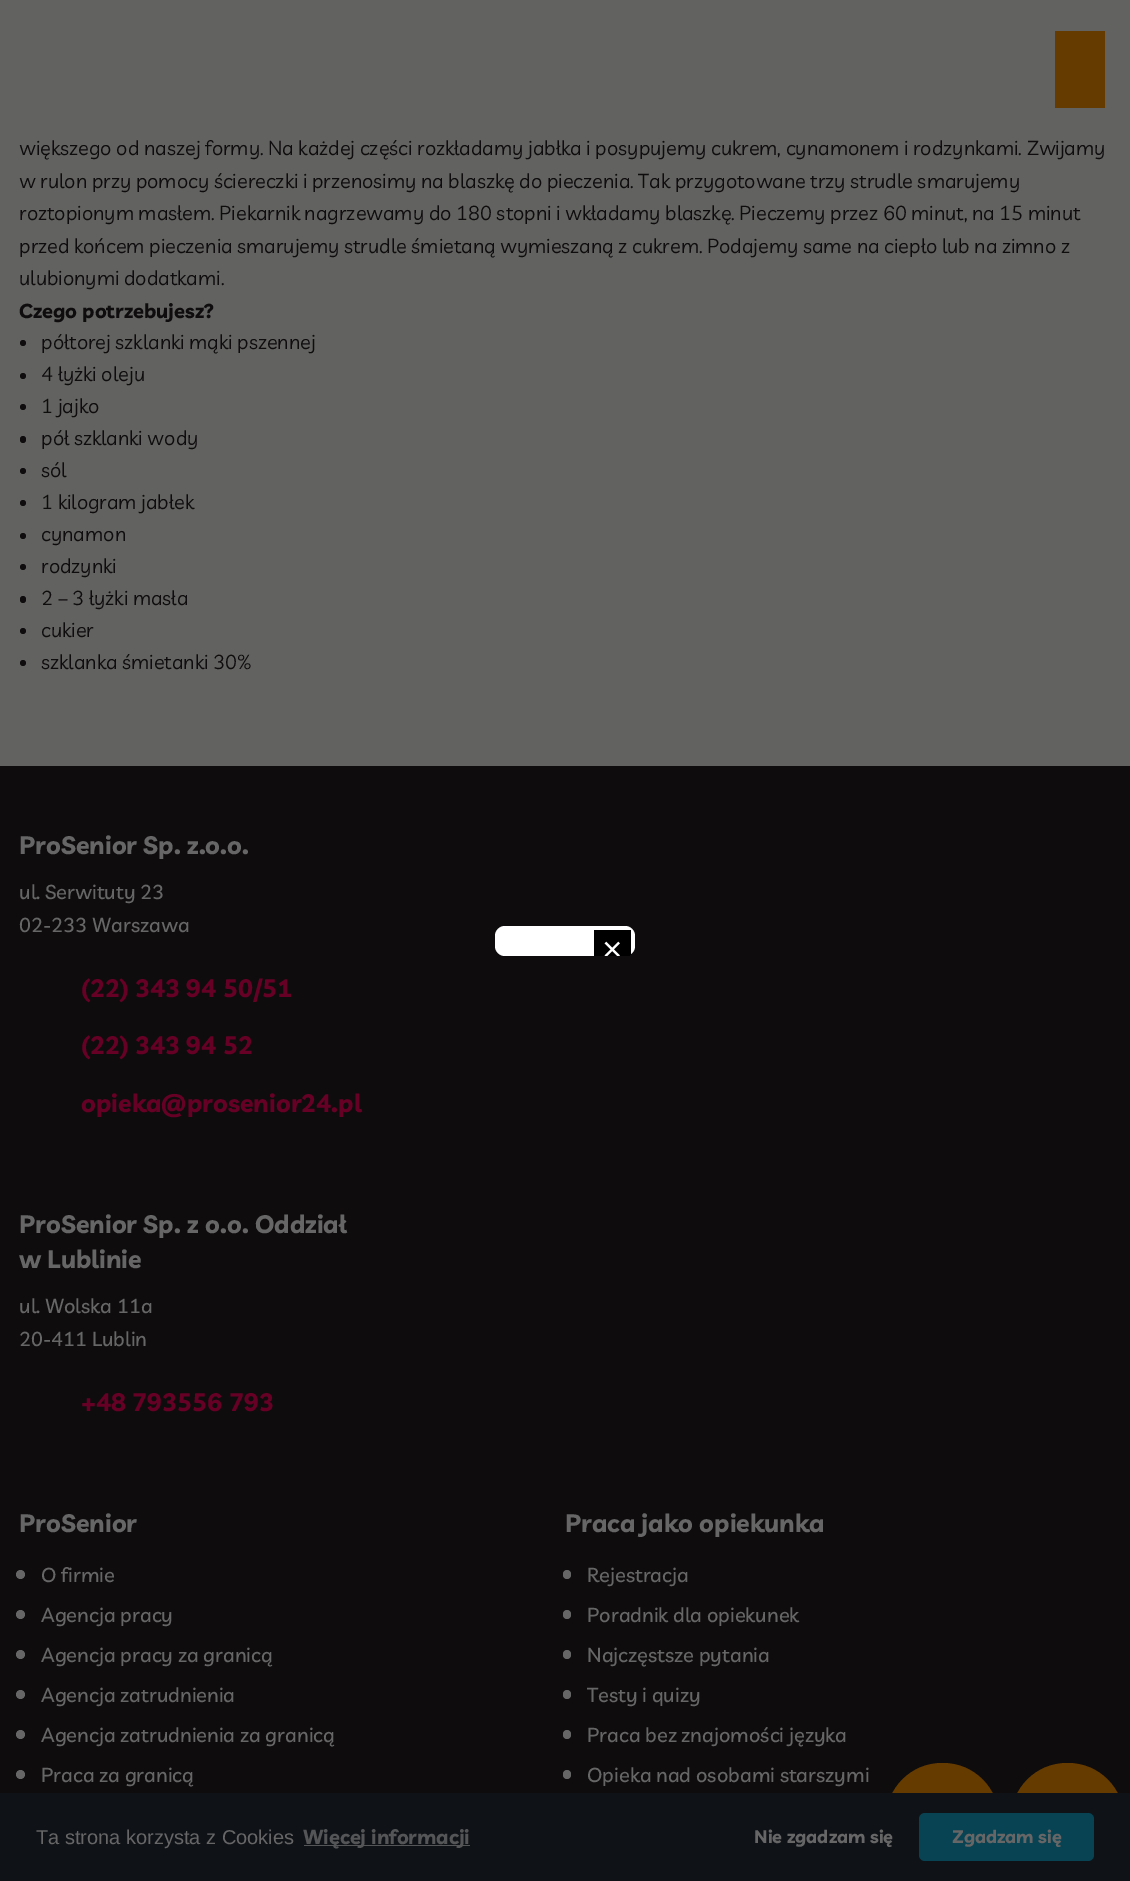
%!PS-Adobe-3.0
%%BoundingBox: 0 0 1130 1881
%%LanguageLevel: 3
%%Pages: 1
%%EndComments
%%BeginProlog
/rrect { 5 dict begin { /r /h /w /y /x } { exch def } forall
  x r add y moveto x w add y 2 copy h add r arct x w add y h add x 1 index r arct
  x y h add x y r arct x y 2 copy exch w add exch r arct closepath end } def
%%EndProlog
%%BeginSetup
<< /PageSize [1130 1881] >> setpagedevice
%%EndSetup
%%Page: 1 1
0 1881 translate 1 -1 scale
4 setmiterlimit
0.384 0.384 0.376 setrgbcolor
0 0 1130 1881 rectfill
0.4 0.231 0 setrgbcolor
1055 31 50 77 rectfill
0.055 0.047 0.051 setrgbcolor
newpath 23 343 3 0 360 arc closepath fill
newpath 23 376 3 0 360 arc closepath fill
newpath 23 407 3 0 360 arc closepath fill
20 436 6 7 3 rrect fill
newpath 23 471 3 0 360 arc closepath fill
newpath 23 503 3 0 360 arc closepath fill
newpath 23 536 3 0 360 arc closepath fill
newpath 23 567 3 0 360 arc closepath fill
20 596 6 7 3 rrect fill
newpath 23 631 3 0 360 arc closepath fill
newpath 23 663 3 0 360 arc closepath fill
0 766 1130 1027 rectfill
0.4 setgray
newpath 20.5 1574.5 4.5 0 360 arc closepath fill
newpath 20.5 1614.5 4.5 0 360 arc closepath fill
newpath 20.5 1654.5 4.5 0 360 arc closepath fill
newpath 20.5 1694.5 4.5 0 360 arc closepath fill
newpath 20.5 1734.5 4.5 0 360 arc closepath fill
newpath 20.5 1774.5 4.5 0 360 arc closepath fill
563 1570 8 9 4 rrect fill
563 1610 8 9 4 rrect fill
563 1650 8 9 4 rrect fill
563 1690 8 9 4 rrect fill
563 1730 8 9 4 rrect fill
563 1770 8 9 4 rrect fill
1 setgray
495 926 140 30 10 rrect fill
gsave
495 926 140 30 10 rrect clip newpath
0 setgray
594 930 37 26 rectfill
grestore
0.4 0.231 0 setrgbcolor
886 1763 113 112 56 rrect fill
1011 1763 113 112 56 rrect fill
0.059 0.071 0.09 setrgbcolor
0 1793 1130 88 rectfill
0.329 0.333 0.337 setrgbcolor
304 1845 166 1 rectfill
0.031 0.263 0.325 setrgbcolor
919 1813 175 48 6 rrect fill
/Livvic-Regular [20 0 0 -20 0 0] selectfont
0.055 0.047 0.051 setrgbcolor
19 155 moveto (większego od naszej formy. Na każdej części rozkładamy jabłka i posypujemy cukrem, cynamonem i rodzynkami. Zwijamy) show
19 188 moveto (w rulon przy pomocy ściereczki i przenosimy na blaszkę do pieczenia. Tak przygotowane trzy strudle smarujemy) show
19 220 moveto (roztopionym masłem. Piekarnik nagrzewamy do 180 stopni i wkładamy blaszkę. Pieczemy przez 60 minut, na 15 minut) show
19 253 moveto (przed końcem pieczenia smarujemy strudle śmietaną wymieszaną z cukrem. Podajemy same na ciepło lub na zimno z) show
19 285 moveto (ulubionymi dodatkami.) show
/Livvic-Bold [20 0 0 -20 0 0] selectfont
19 318 moveto (Czego potrzebujesz?) show
/Livvic-Regular [20 0 0 -20 0 0] selectfont
41 349 moveto (półtorej szklanki mąki pszennej) show
41 381 moveto (4 łyżki oleju) show
41 413 moveto (1 jajko) show
41 445 moveto (pół szklanki wody) show
41 477 moveto (sól) show
41 509 moveto (1 kilogram jabłek) show
41 541 moveto (cynamon) show
41 573 moveto (rodzynki) show
41 605 moveto (2 – 3 łyżki masła) show
41 637 moveto (cukier) show
41 669 moveto (szklanka śmietanki 30%) show
/Livvic-Bold [25 0 0 -25 0 0] selectfont
0.4 setgray
19 854 moveto (ProSenior Sp. z.o.o.) show
/Livvic-Medium [20 0 0 -20 0 0] selectfont
19 899 moveto (ul. Serwituty 23) show
19 932 moveto (02-233 Warszawa) show
/Livvic-Bold [25 0 0 -25 0 0] selectfont
0.4 0 0.145 setrgbcolor
81 997 moveto (\(22\) 343 94 50/51) show
81 1054 moveto (\(22\) 343 94 52) show
81 1112 moveto (opieka@prosenior24.pl) show
0.4 setgray
19 1233 moveto (ProSenior Sp. z o.o. Oddział) show
19 1268 moveto (w Lublinie) show
/Livvic-Medium [20 0 0 -20 0 0] selectfont
19 1313 moveto (ul. Wolska 11a) show
19 1346 moveto (20-411 Lublin) show
/Livvic-Bold [25 0 0 -25 0 0] selectfont
0.4 0 0.145 setrgbcolor
81 1411 moveto (+48 793556 793) show
0.4 setgray
19 1532 moveto (ProSenior) show
/Livvic-Medium [20 0 0 -20 0 0] selectfont
41 1582 moveto (O firmie) show
41 1622 moveto (Agencja pracy) show
41 1662 moveto (Agencja pracy za granicą) show
41 1702 moveto (Agencja zatrudnienia) show
41 1742 moveto (Agencja zatrudnienia za granicą) show
41 1782 moveto (Praca za granicą) show
/Livvic-Bold [25 0 0 -25 0 0] selectfont
565 1532 moveto (Praca jako opiekunka) show
/Livvic-Medium [20 0 0 -20 0 0] selectfont
587 1582 moveto (Rejestracja) show
587 1622 moveto (Poradnik dla opiekunek) show
587 1662 moveto (Najczęstsze pytania) show
587 1702 moveto (Testy i quizy) show
587 1742 moveto (Praca bez znajomości języka) show
587 1782 moveto (Opieka nad osobami starszymi) show
gsave
495 926 140 30 10 rrect clip newpath
/LiberationSans-Regular [35 0 0 -35 0 0] selectfont
1 setgray
602 961 moveto (×) show
grestore
/LiberationSans-Regular [20 0 0 -20 0 0] selectfont
36 1844 moveto (Ta strona korzysta z Cookies) show
/Livvic-Bold [20 0 0 -20 0 0] selectfont
0.329 0.333 0.337 setrgbcolor
303 1844 moveto (Więcej informacji) show
/Livvic-Bold [18 0 0 -18 0 0] selectfont
0.4 setgray
754 1843 moveto (Nie zgadzam się) show
952 1843 moveto (Zgadzam się) show
showpage
%%EOF
